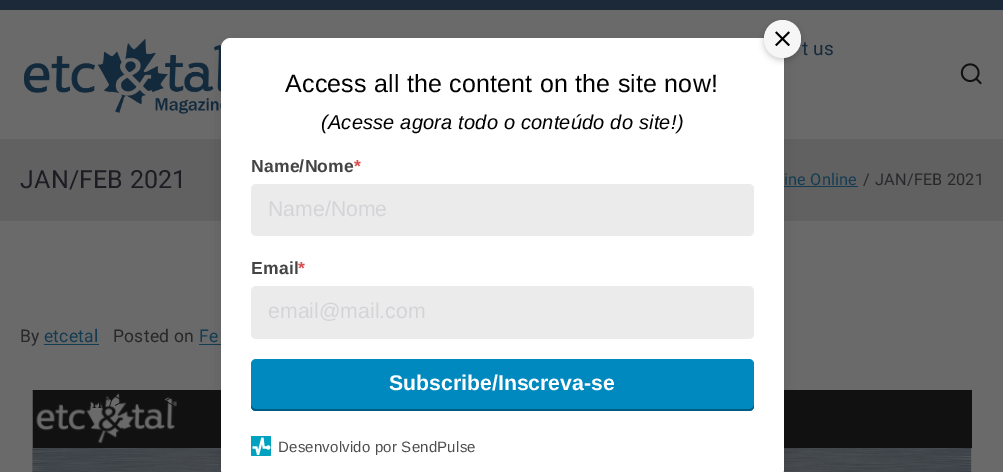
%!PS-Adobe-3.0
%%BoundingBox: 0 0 1003 472
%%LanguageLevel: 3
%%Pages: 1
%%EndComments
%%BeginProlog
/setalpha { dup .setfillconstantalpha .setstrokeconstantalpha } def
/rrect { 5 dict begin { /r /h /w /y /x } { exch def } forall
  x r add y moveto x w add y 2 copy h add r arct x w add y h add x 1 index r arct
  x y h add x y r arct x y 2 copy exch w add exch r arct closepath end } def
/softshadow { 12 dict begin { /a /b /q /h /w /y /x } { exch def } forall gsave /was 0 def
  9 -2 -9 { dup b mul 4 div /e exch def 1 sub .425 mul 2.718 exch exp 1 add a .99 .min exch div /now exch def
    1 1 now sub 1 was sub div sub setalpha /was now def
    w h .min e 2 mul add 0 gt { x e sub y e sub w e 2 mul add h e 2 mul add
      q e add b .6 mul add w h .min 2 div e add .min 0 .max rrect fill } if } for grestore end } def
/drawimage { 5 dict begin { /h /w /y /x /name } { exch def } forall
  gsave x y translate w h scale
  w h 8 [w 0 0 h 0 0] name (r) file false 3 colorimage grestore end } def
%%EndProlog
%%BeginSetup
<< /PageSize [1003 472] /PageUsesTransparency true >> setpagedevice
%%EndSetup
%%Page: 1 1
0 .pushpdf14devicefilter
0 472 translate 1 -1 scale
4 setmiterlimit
0.11 0.161 0.22 setrgbcolor
0 0 1003 472 rectfill
0.42 0.416 0.416 setrgbcolor
0 10 1003 129 rectfill
(images/1.raw) 23 39 199 75 drawimage
(images/2.raw) 960 63 22 22 drawimage
0.384 0.38 0.384 setrgbcolor
0 139 1003 82 rectfill
0.075 0.235 0.322 setrgbcolor
784 186 74 1 rectfill
0.42 0.416 0.416 setrgbcolor
0 221 1003 251 rectfill
0.075 0.235 0.322 setrgbcolor
44 344 55 1 rectfill
199 344 22 1 rectfill
(images/3.raw) 32 390 940 82 drawimage
0 setgray
221 44 563 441 10 9.5 0.1 softshadow
1 setgray
221 38 563 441 10 rrect fill
0 setgray
764 23 37 37 18.5 3 0.2 softshadow
0.965 setgray
764 20 37 38 18.5 rrect fill
(images/4.raw) 775 31 15 15 drawimage
0.922 setgray
251 184 503 52 5 rrect fill
251 286 503 53 5 rrect fill
0 0.537 0.749 setrgbcolor
251 359 503 52 5 rrect fill
0 0.365 0.51 setrgbcolor
newpath 251 404 moveto 251 406 lineto 251 409 253 411 256 411 curveto 749 411 lineto 752 411 754 409 754 406 curveto 754 404 lineto 754 407 752 409 749 409 curveto 256 409 lineto 253 409 251 407 251 404 curveto closepath fill
0 0.596 0.722 setrgbcolor
251 436 20 20 1 rrect fill
(images/5.raw) 251 436 20 20 drawimage
/Roboto-Regular [19 0 0 -19 0 0] selectfont
0.086 0.165 0.231 setrgbcolor
802 55 moveto 0.2 0 (t us) ashow
/Roboto-Regular [25 0 0 -25 0 0] selectfont
0.114 0.11 0.133 setrgbcolor
20 188 moveto 0.2 0 (JAN/FEB 2021) ashow
/Roboto-Regular [16.25 0 0 -16.25 0 0] selectfont
0.075 0.235 0.322 setrgbcolor
784 185 moveto 0.2 0 (ine Online) ashow
0.157 0.153 0.161 setrgbcolor
863 185 moveto 0.2 0 (/) ashow
875 185 moveto 0.2 0 (JAN/FEB 2021) ashow
/Roboto-Regular [17.5 0 0 -17.5 0 0] selectfont
20 342 moveto 0.2 0 (By) ashow
0.075 0.235 0.322 setrgbcolor
44 342 moveto 0.2 0 (etcetal) ashow
0.157 0.153 0.161 setrgbcolor
113 342 moveto 0.2 0 (Posted on) ashow
0.075 0.235 0.322 setrgbcolor
199 342 moveto 0.2 0 (Fe) ashow
/LiberationSans-Regular [25 0 0 -25 0 0] selectfont
0 setgray
285 92 moveto 0.2 0 (Access all the content on the site now!) ashow
/LiberationSans-Italic [20 0 0 -20 0 0] selectfont
321 129 moveto 0.2 0 (\(Acesse agora todo o conteúdo do site!\)) ashow
/LiberationSans-Bold [17.5 0 0 -17.5 0 0] selectfont
0.267 setgray
251 172 moveto 0.2 0 (Name/Nome) ashow
0.851 0.294 0.302 setrgbcolor
354 172 moveto 0.2 0 (*) ashow
/LiberationSans-Regular [21.25 0 0 -21.25 0 0] selectfont
0.831 0.831 0.847 setrgbcolor
268 216 moveto (Name/Nome) show
/LiberationSans-Bold [17.5 0 0 -17.5 0 0] selectfont
0.267 setgray
251 274 moveto 0.2 0 (Email) ashow
0.851 0.294 0.302 setrgbcolor
298 274 moveto 0.2 0 (*) ashow
/LiberationSans-Regular [21.25 0 0 -21.25 0 0] selectfont
0.831 0.831 0.847 setrgbcolor
268 318 moveto (email@mail.com) show
/LiberationSans-Bold [21.25 0 0 -21.25 0 0] selectfont
1 setgray
389 390 moveto (Subscribe/Inscreva-se) show
/LiberationSans-Regular [15 0 0 -15 0 0] selectfont
0.306 setgray
278 452 moveto 0.2 0 (Desenvolvido por SendPulse) ashow
.poppdf14devicefilter showpage
%%EOF
